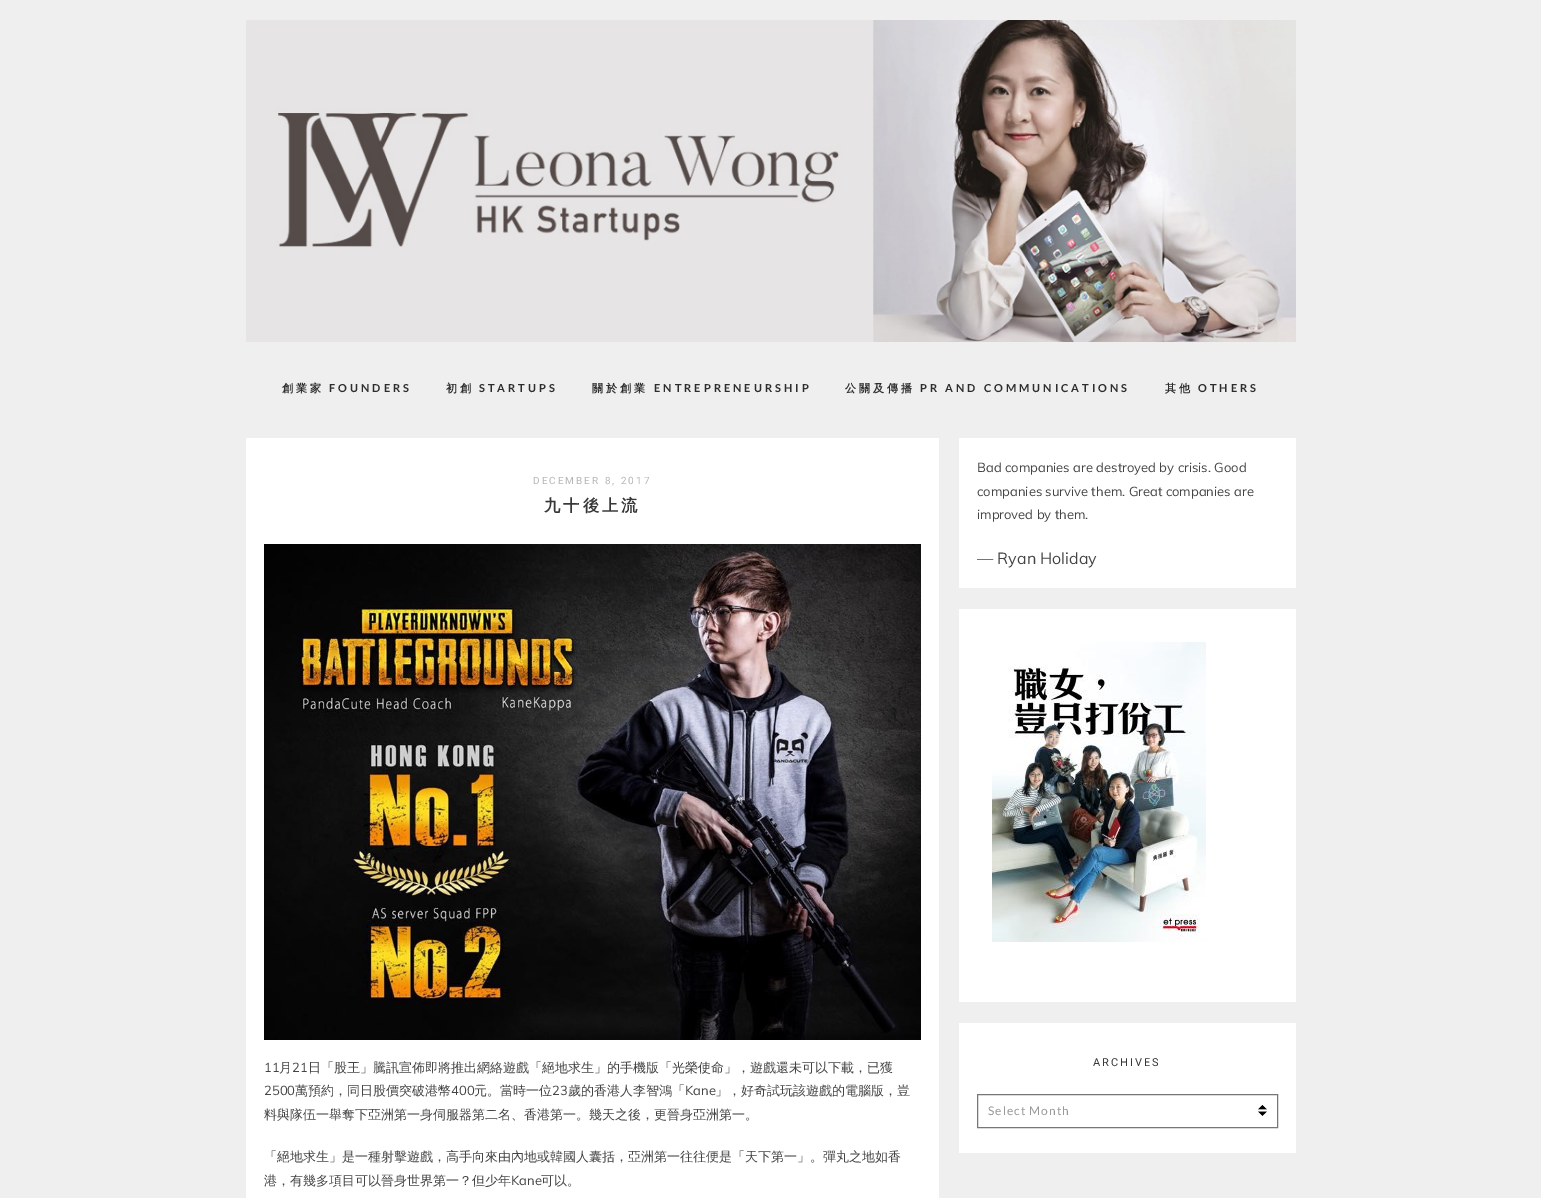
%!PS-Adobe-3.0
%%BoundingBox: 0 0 1541 1198
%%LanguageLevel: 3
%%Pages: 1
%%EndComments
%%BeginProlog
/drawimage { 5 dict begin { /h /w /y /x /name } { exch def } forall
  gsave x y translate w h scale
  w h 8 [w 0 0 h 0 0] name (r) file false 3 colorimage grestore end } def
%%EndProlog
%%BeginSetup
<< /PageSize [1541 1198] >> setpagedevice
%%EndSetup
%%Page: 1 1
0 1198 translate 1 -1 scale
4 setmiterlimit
0.937 setgray
0 0 1541 1198 rectfill
(images/1.raw) 246 20 1050 322 drawimage
1 setgray
246 438 693 760 rectfill
(images/2.raw) 264 544 657 496 drawimage
959 438 337 150 rectfill
959 609 337 393 rectfill
(images/3.raw) 992 642 214 300 drawimage
959 1023 337 130 rectfill
(images/4.raw) 1258 1105 9 11 drawimage
0.467 setgray
977.5 1094.5 300 33 rectstroke
/WenQuanYiZenHei-Bold [11 0 0 -11 0 0] selectfont
0.176 setgray
282 392 moveto 3 0 (創業家) ashow
/Lato-Bold [11 0 0 -11 0 0] selectfont
329 392 moveto 3 0 (FOUNDERS) ashow
/WenQuanYiZenHei-Bold [11 0 0 -11 0 0] selectfont
446 392 moveto 3 0 (初創) ashow
/Lato-Bold [11 0 0 -11 0 0] selectfont
479 392 moveto 3 0 (STARTUPS) ashow
/WenQuanYiZenHei-Bold [11 0 0 -11 0 0] selectfont
592 392 moveto 3 0 (關於創業) ashow
/Lato-Bold [11 0 0 -11 0 0] selectfont
654 392 moveto 3 0 (ENTREPRENEURSHIP) ashow
/WenQuanYiZenHei-Bold [11 0 0 -11 0 0] selectfont
845 392 moveto 3 0 (公關及傳播) ashow
/Lato-Bold [11 0 0 -11 0 0] selectfont
920 392 moveto 3 0 (PR AND COMMUNICATIONS) ashow
/WenQuanYiZenHei-Bold [11 0 0 -11 0 0] selectfont
1165 392 moveto 3 0 (其他) ashow
/Lato-Bold [11 0 0 -11 0 0] selectfont
1198 392 moveto 3 0 (OTHERS) ashow
/Roboto-Regular [10 0 0 -10 0 0] selectfont
0.714 setgray
533 484 moveto 2 0 (DECEMBER 8, 2017) ashow
/WenQuanYiZenHei-Bold [16.25 0 0 -16.25 0 0] selectfont
0.216 setgray
544 511 moveto 3 0 (九十後上流) ashow
/Muli-Regular [13 0 0 -13 0 0] selectfont
0.267 setgray
264 1072 moveto (11) show
/WenQuanYiZenHei-Medium [13 0 0 -13 0 0] selectfont
279 1072 moveto (月) show
/Muli-Regular [13 0 0 -13 0 0] selectfont
292 1072 moveto (21) show
/WenQuanYiZenHei-Medium [13 0 0 -13 0 0] selectfont
308 1072 moveto (日「股王」騰訊宣佈即將推出網絡遊戲「絕地求生」的手機版「光榮使命」，遊戲還未可以下載，已獲) show
/Muli-Regular [13 0 0 -13 0 0] selectfont
264 1095 moveto (2500) show
/WenQuanYiZenHei-Medium [13 0 0 -13 0 0] selectfont
295 1095 moveto (萬預約，同日股價突破港幣) show
/Muli-Regular [13 0 0 -13 0 0] selectfont
451 1095 moveto (400) show
/WenQuanYiZenHei-Medium [13 0 0 -13 0 0] selectfont
474 1095 moveto (元。當時一位) show
/Muli-Regular [13 0 0 -13 0 0] selectfont
552 1095 moveto (23) show
/WenQuanYiZenHei-Medium [13 0 0 -13 0 0] selectfont
568 1095 moveto (歲的香港人李智鴻「) show
/Muli-Regular [13 0 0 -13 0 0] selectfont
685 1095 moveto (Kane) show
/WenQuanYiZenHei-Medium [13 0 0 -13 0 0] selectfont
715 1095 moveto (」，好奇試玩該遊戲的電腦版，豈) show
264 1119 moveto (料與隊伍一舉奪下亞洲第一身伺服器第二名、香港第一。幾天之後，更晉身亞洲第一。) show
264 1161 moveto (「絕地求生」是一種射擊遊戲，高手向來由內地或韓國人囊括，亞洲第一往往便是「天下第一」。彈丸之地如香) show
264 1185 moveto (港，有幾多項目可以晉身世界第一？但少年) show
/Muli-Regular [13 0 0 -13 0 0] selectfont
511 1185 moveto (Kane) show
/WenQuanYiZenHei-Medium [13 0 0 -13 0 0] selectfont
541 1185 moveto (可以。) show
/Muli-Regular [13 0 0 -13 0 0] selectfont
977 472 moveto (Bad companies are destroyed by crisis. Good) show
977 496 moveto (companies survive them. Great companies are) show
977 519 moveto (improved by them.) show
/Muli-Regular [16 0 0 -16 0 0] selectfont
977 564 moveto (— Ryan Holiday) show
/Roboto-Regular [11 0 0 -11 0 0] selectfont
0.216 setgray
1093 1066 moveto 2 0 (ARCHIVES) ashow
/Lato-Regular [12 0 0 -12 0 0] selectfont
0.6 setgray
988 1115 moveto 1 0 (Select Month) ashow
showpage
%%EOF
